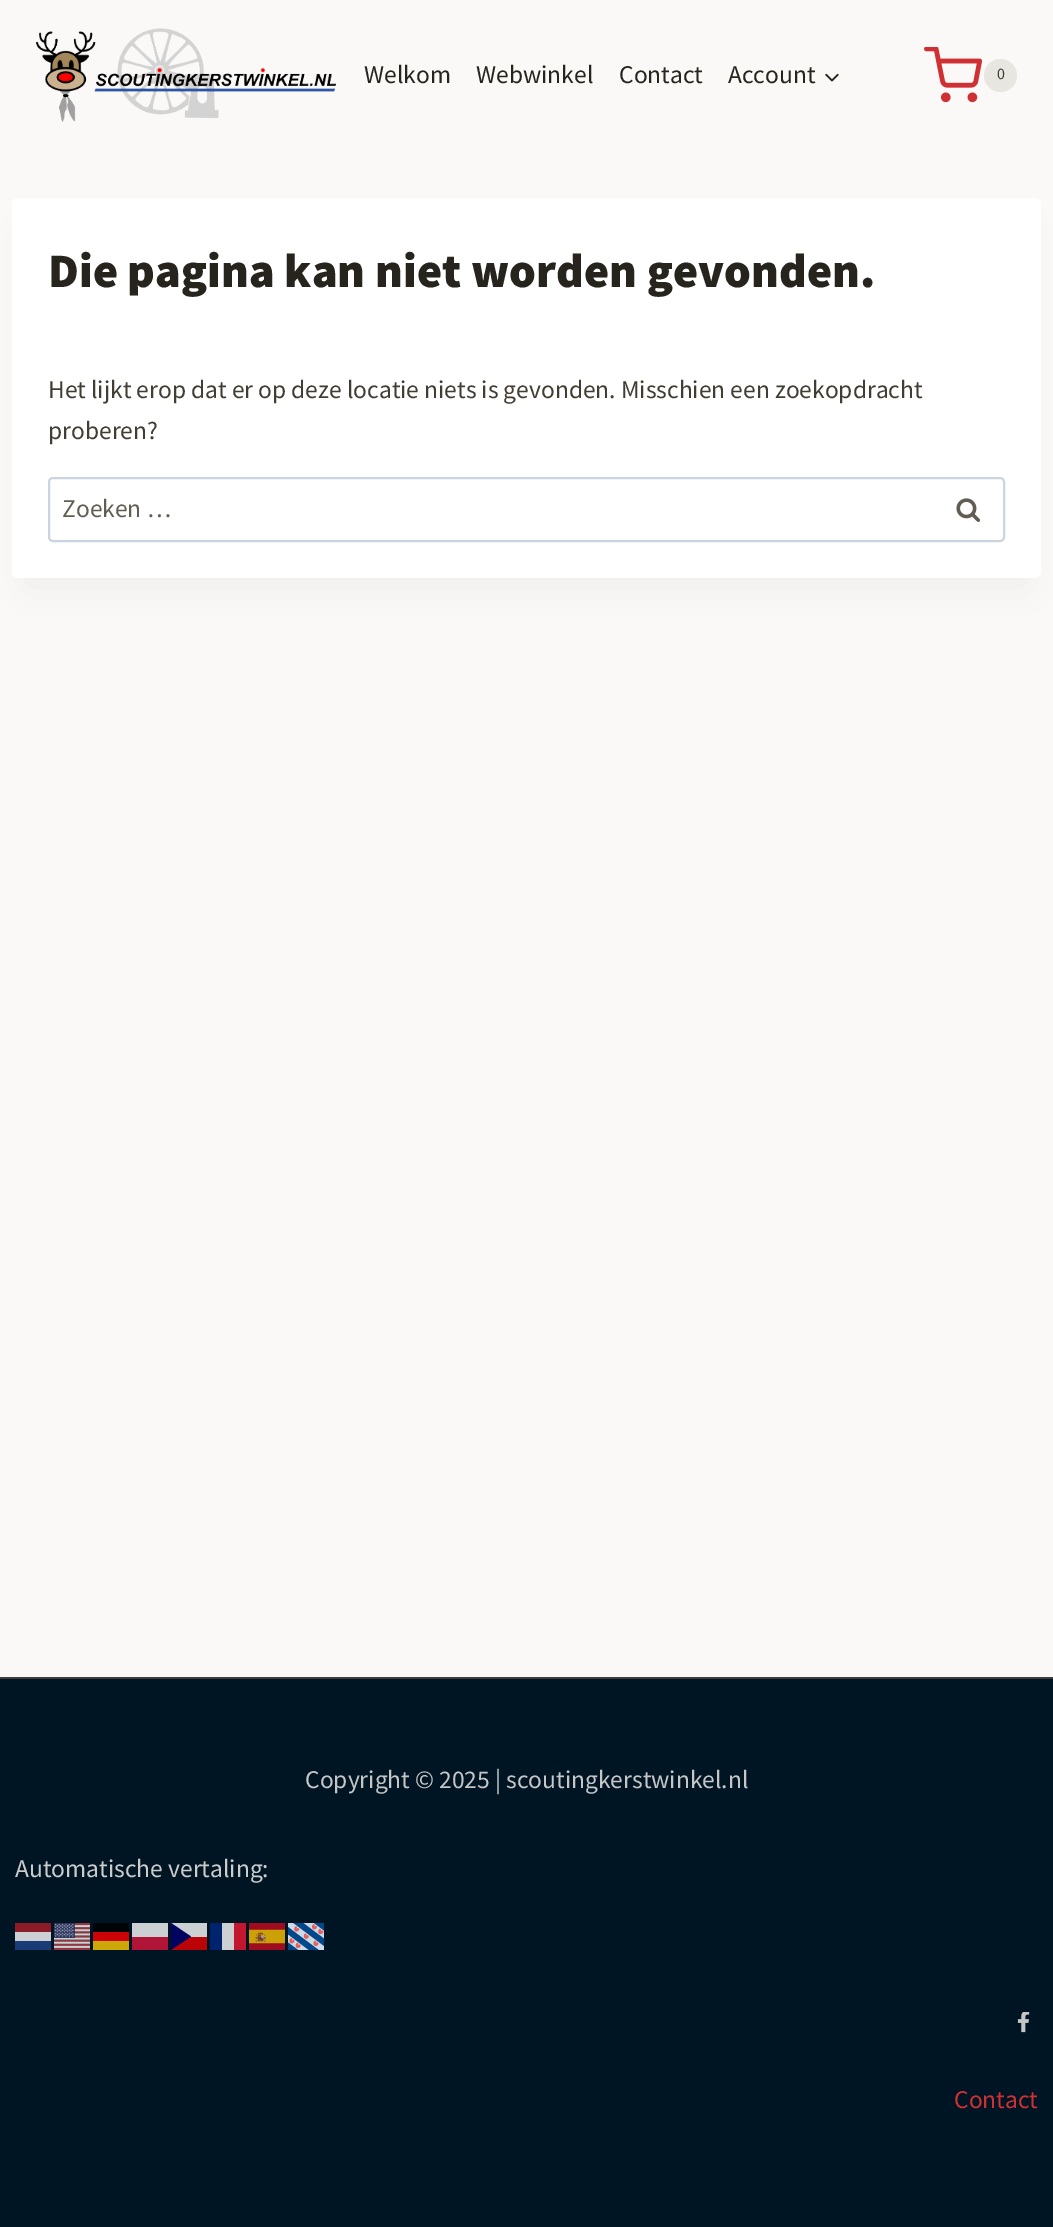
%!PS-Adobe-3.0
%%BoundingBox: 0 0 1053 2227
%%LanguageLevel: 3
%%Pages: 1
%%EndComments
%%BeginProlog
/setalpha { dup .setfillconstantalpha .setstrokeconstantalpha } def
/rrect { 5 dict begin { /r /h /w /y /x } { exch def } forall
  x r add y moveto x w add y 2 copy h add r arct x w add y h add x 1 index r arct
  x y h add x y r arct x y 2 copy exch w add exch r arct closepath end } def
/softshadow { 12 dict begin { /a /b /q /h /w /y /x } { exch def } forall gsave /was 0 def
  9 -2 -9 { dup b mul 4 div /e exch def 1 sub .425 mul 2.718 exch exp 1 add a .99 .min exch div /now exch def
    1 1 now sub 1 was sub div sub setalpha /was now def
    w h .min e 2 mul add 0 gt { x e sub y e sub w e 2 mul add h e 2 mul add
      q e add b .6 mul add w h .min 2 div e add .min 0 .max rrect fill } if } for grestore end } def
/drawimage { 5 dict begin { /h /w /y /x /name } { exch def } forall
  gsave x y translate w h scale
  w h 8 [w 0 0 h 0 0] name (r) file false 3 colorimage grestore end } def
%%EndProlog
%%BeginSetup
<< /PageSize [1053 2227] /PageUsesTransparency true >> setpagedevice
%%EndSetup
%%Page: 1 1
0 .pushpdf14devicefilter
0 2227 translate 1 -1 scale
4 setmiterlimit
0.98 0.976 0.969 setrgbcolor
0 0 1053 2227 rectfill
(images/1.raw) 36 28 300 94 drawimage
(images/2.raw) 825 73 14 9 drawimage
(images/3.raw) 924 47 58 56 drawimage
0.91 0.902 0.882 setrgbcolor
newpath 1000.5 75.5 16.5 0 360 arc closepath fill
0 setgray
27 236 999 349 0 19 0.05 softshadow
1 setgray
12 198 1029 380 6 rrect fill
0.796 0.835 0.878 setrgbcolor
2 setlinewidth
49 478 955 63 4 rrect stroke
(images/4.raw) 956 498 25 24 drawimage
0 0.082 0.141 setrgbcolor
0 1679 1053 548 rectfill
0.239 setgray
0 1677 1053 2 rectfill
0.545 0.106 0.153 setrgbcolor
15 1923 36 9 rectfill
(images/5.raw) 54 1923 36 27 drawimage
0 0.016 0.027 setrgbcolor
93 1923 36 9 rectfill
0.8 0.816 0.827 setrgbcolor
132 1923 36 14 rectfill
171 1923 36 14 rectfill
15 1932 36 9 rectfill
0.8 0.016 0.027 setrgbcolor
93 1932 36 9 rectfill
0.69 0.078 0.216 setrgbcolor
132 1937 36 13 rectfill
0.729 0.016 0.027 setrgbcolor
171 1937 36 13 rectfill
0 0.016 0.376 setrgbcolor
newpath 171 1923 moveto 191 1936.5 lineto 171 1950 lineto closepath eofill
0 0.137 0.427 setrgbcolor
210 1923 12 27 rectfill
0.8 0.816 0.827 setrgbcolor
222 1923 12 27 rectfill
0.761 0.09 0.18 setrgbcolor
234 1923 12 27 rectfill
(images/6.raw) 249 1923 36 27 drawimage
(images/7.raw) 288 1923 36 27 drawimage
0.102 0.235 0.463 setrgbcolor
15 1941 36 9 rectfill
0.8 0.655 0.027 setrgbcolor
93 1941 36 9 rectfill
(images/8.raw) 1017 2012 13 21 drawimage
/SourceSansPro-Regular [25.5 0 0 -25.5 0 0] selectfont
0.153 0.141 0.114 setrgbcolor
364 83 moveto (Welkom) show
476 83 moveto (Webwinkel) show
619 83 moveto (Contact) show
728 83 moveto (Account) show
/SourceSansPro-Regular [16 0 0 -16 0 0] selectfont
0.259 0.239 0.2 setrgbcolor
997 79 moveto (0) show
/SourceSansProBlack-Black [48 0 0 -48 0 0] selectfont
0.153 0.141 0.114 setrgbcolor
48 287 moveto (Die pagina kan niet worden gevonden.) show
/SourceSansPro-Regular [25.5 0 0 -25.5 0 0] selectfont
0.259 0.239 0.2 setrgbcolor
48 398 moveto (Het lijkt erop dat er op deze locatie niets is gevonden. Misschien een zoekopdracht) show
48 439 moveto (proberen?) show
0.384 0.365 0.322 setrgbcolor
62 517 moveto (Zoeken …) show
0.776 setgray
305 1788 moveto (Copyright © 2025 | scoutingkerstwinkel.nl) show
0.8 setgray
15 1877 moveto (Automatische vertaling:) show
0.812 0.188 0.2 setrgbcolor
954 2108 moveto (Contact) show
.poppdf14devicefilter showpage
%%EOF
